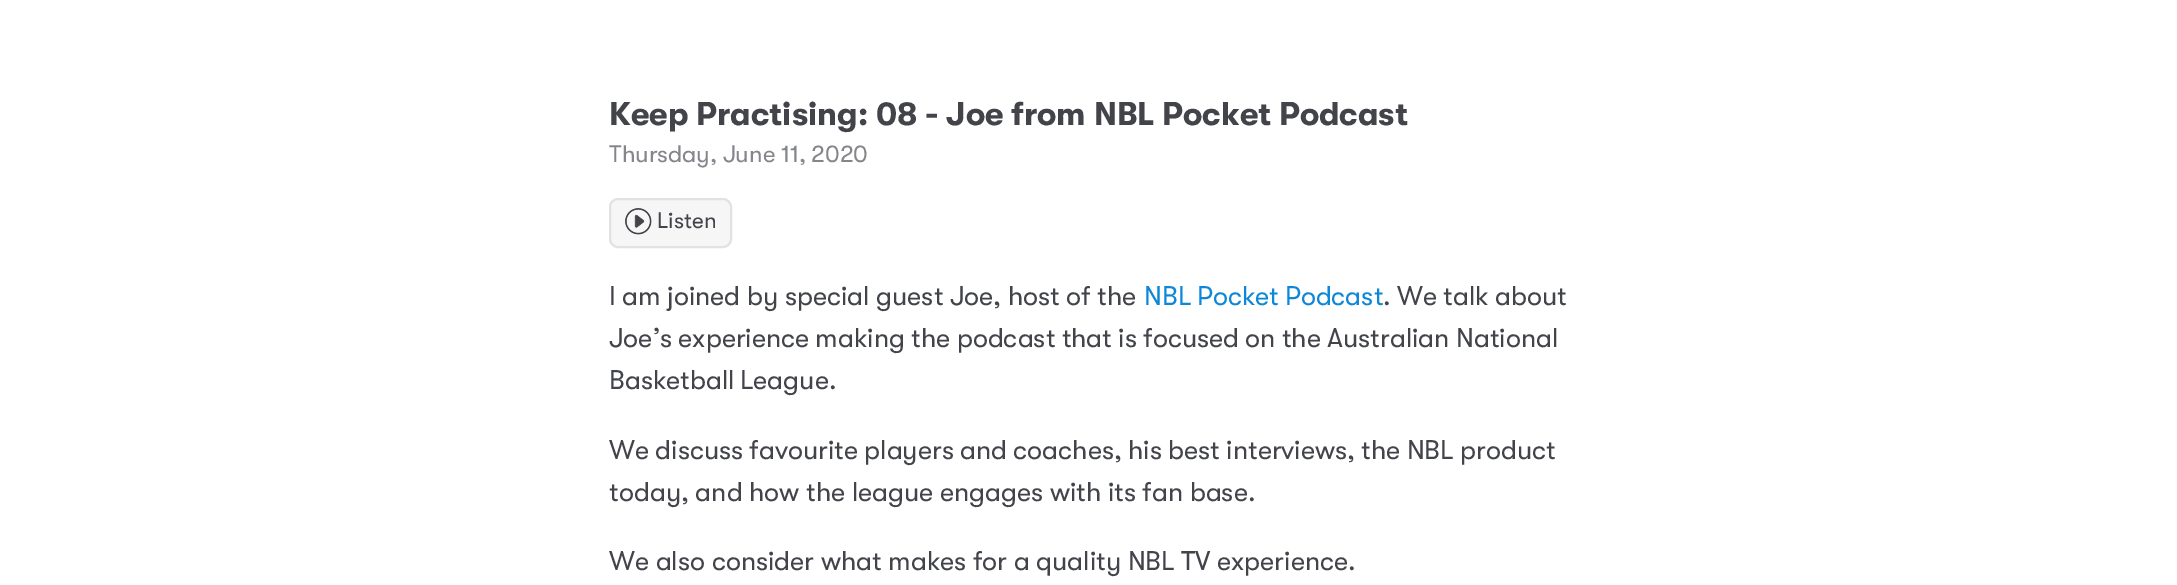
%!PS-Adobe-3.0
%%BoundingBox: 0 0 2177 585
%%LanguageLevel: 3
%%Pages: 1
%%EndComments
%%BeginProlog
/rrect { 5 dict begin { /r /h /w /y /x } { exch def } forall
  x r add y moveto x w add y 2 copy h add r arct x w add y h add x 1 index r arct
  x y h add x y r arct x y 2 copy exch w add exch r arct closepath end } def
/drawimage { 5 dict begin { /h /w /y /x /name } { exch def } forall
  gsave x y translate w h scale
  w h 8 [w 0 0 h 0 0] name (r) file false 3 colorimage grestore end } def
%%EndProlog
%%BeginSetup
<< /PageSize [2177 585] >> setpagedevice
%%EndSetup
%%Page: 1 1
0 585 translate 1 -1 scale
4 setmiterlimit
1 setgray
0 0 2177 585 rectfill
0.965 setgray
610 199 121 48 8 rrect gsave fill grestore
0.886 0.886 0.894 setrgbcolor
2 setlinewidth
stroke
(images/1.raw) 625 208 27 27 drawimage
/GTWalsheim-Bold [33 0 0 -33 0 0] selectfont
0.259 0.267 0.29 setrgbcolor
609 125 moveto -0.25 0 32 (Keep Practising: 08 - Joe from NBL Pocket Podcast) widthshow
/GTWalsheim-Regular [24 0 0 -24 0 0] selectfont
0.518 0.525 0.545 setrgbcolor
609 162 moveto -0.5 0 32 (Thursday, June 11, 2020) widthshow
/GTWalsheim-Regular [22.5 0 0 -22.5 0 0] selectfont
0.259 0.267 0.29 setrgbcolor
657 228 moveto (Listen) show
/GTWalsheim-Regular [27 0 0 -27 0 0] selectfont
609 305 moveto -0.25 0 32 (I am joined by special guest Joe, host of the) widthshow
0.051 0.533 0.847 setrgbcolor
1144 305 moveto -1 0 32 (NBL Pocket Podcast) widthshow
0.259 0.267 0.29 setrgbcolor
1383 305 moveto -0.5 0 32 (. We talk about) widthshow
609 347 moveto -0.5 0 32 (Joe’s experience making the podcast that is focused on the Australian National) widthshow
609 389 moveto -2 0 32 (Basketball League.) widthshow
609 459 moveto -0.5 0 32 (We discuss favourite players and coaches, his best interviews, the NBL product) widthshow
609 501 moveto -0.25 0 32 (today, and how the league engages with its fan base.) widthshow
609 570 moveto -0.25 0 32 (We also consider what makes for a quality NBL TV experience.) widthshow
showpage
%%EOF
